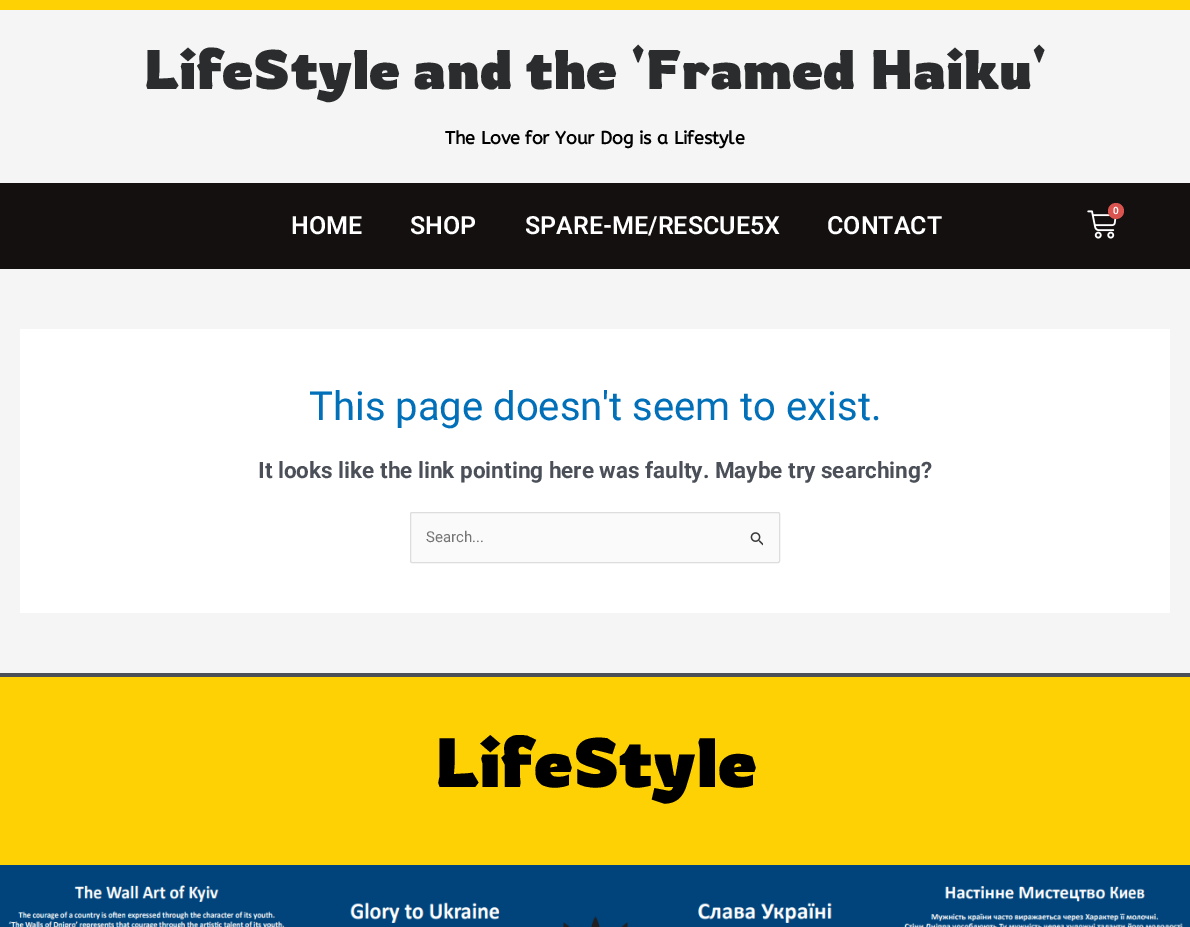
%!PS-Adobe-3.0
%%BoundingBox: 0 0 1190 927
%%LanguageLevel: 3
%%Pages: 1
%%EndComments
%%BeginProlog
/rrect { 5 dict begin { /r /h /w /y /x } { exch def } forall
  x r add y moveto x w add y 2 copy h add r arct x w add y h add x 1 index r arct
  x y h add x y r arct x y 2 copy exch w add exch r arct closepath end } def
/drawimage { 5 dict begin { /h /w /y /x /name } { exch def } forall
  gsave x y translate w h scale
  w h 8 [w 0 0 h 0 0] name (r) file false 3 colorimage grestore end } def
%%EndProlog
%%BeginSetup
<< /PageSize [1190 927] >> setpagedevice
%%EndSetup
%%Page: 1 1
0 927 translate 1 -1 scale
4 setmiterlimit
0.961 setgray
0 0 1190 927 rectfill
0.996 0.82 0.02 setrgbcolor
0 0 1190 10 rectfill
0.078 0.063 0.063 setrgbcolor
0 183 1190 86 rectfill
(images/1.raw) 1087 210 30 29 drawimage
0.851 0.325 0.31 setrgbcolor
newpath 1116 211 8 0 360 arc closepath fill
1 setgray
20 329 1150 284 rectfill
0.98 setgray
410.5 512.5 369 50 1.5 rrect gsave fill grestore
0.867 setgray
stroke
(images/2.raw) 750 532 13 14 drawimage
0.996 0.82 0.02 setrgbcolor
0 677 1190 188 rectfill
0.294 0.31 0.345 setrgbcolor
0 673 1190 4 rectfill
(images/3.raw) 0 865 1190 62 drawimage
/Rowdies-Bold [55 0 0 -55 0 0] selectfont
0.165 0.173 0.176 setrgbcolor
143 89 moveto (LifeStyle and the 'Framed Haiku') show
/ABeeZee-Bold [18 0 0 -18 0 0] selectfont
0 setgray
445 144 moveto (The Love for Your Dog is a Lifestyle) show
/Roboto-SemiBold [10 0 0 -10 0 0] selectfont
1 setgray
1113 214 moveto (0) show
/Roboto-SemiBold [25 0 0 -25 0 0] selectfont
291 234 moveto (HOME) show
410 234 moveto (SHOP) show
525 234 moveto (SPARE-ME/RESCUE5X) show
827 234 moveto (CONTACT) show
/Roboto-Regular [40 0 0 -40 0 0] selectfont
0.004 0.439 0.725 setrgbcolor
309 420 moveto (This page doesn't seem to exist.) show
/Roboto-Bold [22.5 0 0 -22.5 0 0] selectfont
0.294 0.31 0.345 setrgbcolor
258 478 moveto (It looks like the link pointing here was faulty. Maybe try searching?) show
/Roboto-Regular [15 0 0 -15 0 0] selectfont
0.459 setgray
426 542 moveto (Search...) show
/Rowdies-Bold [69 0 0 -69 0 0] selectfont
0 setgray
434 787 moveto (LifeStyle) show
showpage
%%EOF
